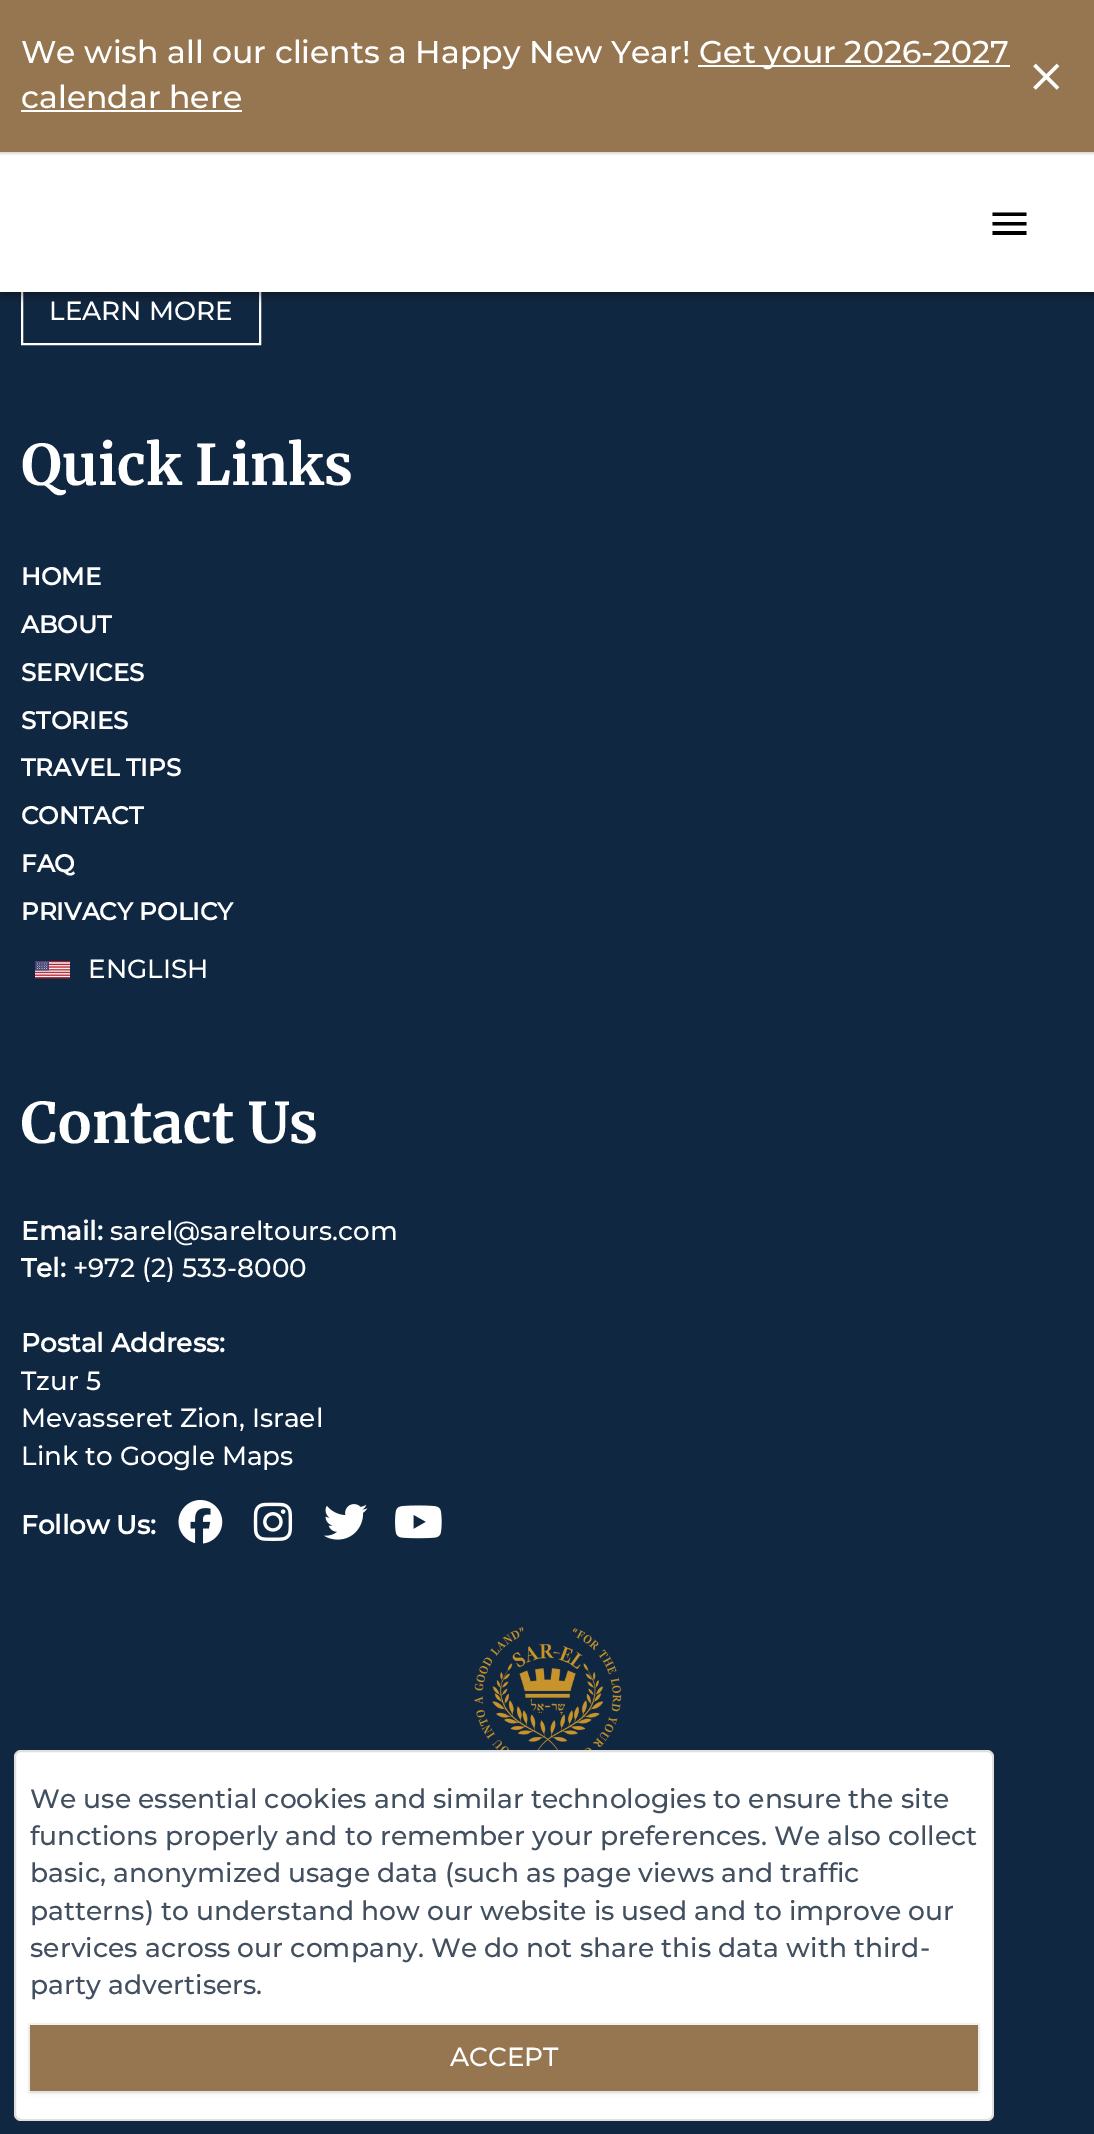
%!PS-Adobe-3.0
%%BoundingBox: 0 0 1094 2134
%%LanguageLevel: 3
%%Pages: 1
%%EndComments
%%BeginProlog
/setalpha { dup .setfillconstantalpha .setstrokeconstantalpha } def
/rrect { 5 dict begin { /r /h /w /y /x } { exch def } forall
  x r add y moveto x w add y 2 copy h add r arct x w add y h add x 1 index r arct
  x y h add x y r arct x y 2 copy exch w add exch r arct closepath end } def
/softshadow { 12 dict begin { /a /b /q /h /w /y /x } { exch def } forall gsave /was 0 def
  9 -2 -9 { dup b mul 4 div /e exch def 1 sub .425 mul 2.718 exch exp 1 add a .99 .min exch div /now exch def
    1 1 now sub 1 was sub div sub setalpha /was now def
    w h .min e 2 mul add 0 gt { x e sub y e sub w e 2 mul add h e 2 mul add
      q e add b .6 mul add w h .min 2 div e add .min 0 .max rrect fill } if } for grestore end } def
/drawimage { 5 dict begin { /h /w /y /x /name } { exch def } forall
  gsave x y translate w h scale
  w h 8 [w 0 0 h 0 0] name (r) file false 3 colorimage grestore end } def
%%EndProlog
%%BeginSetup
<< /PageSize [1094 2134] /PageUsesTransparency true >> setpagedevice
%%EndSetup
%%Page: 1 1
0 .pushpdf14devicefilter
0 2134 translate 1 -1 scale
4 setmiterlimit
0.063 0.153 0.255 setrgbcolor
0 0 1094 2134 rectfill
1 setgray
2 setlinewidth
22 279 238 65 rectstroke
0 setgray
0 2 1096 292 0 9 0.12 softshadow
0 7 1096 292 0 4.5 0.14 softshadow
2 5 1092 289 0 3.5 0.2 softshadow
1 setgray
0 152 1094 140 rectfill
0.247 0.247 0.267 setrgbcolor
0 2 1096 152 0 1 0.15 softshadow
0.05 setalpha
-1 -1 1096 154 rectstroke
1 setalpha
0.584 0.463 0.314 setrgbcolor
0 0 1094 152 rectfill
1 setgray
698 65 312 2 rectfill
21 110 221 2 rectfill
(images/1.raw) 1033 63 27 27 drawimage
0 setgray
newpath 992.5 235 moveto 1026.5 235 lineto 1026.5 231 lineto 992.5 231 lineto closepath 992.5 225.5 moveto 1026.5 225.5 lineto 1026.5 222 lineto 992.5 222 lineto closepath 992.5 212.5 moveto 992.5 216 lineto 1026.5 216 lineto 1026.5 212.5 lineto closepath fill
(images/2.raw) 35 961 35 18 drawimage
(images/3.raw) 178 1500 45 44 drawimage
(images/4.raw) 253 1502 40 39 drawimage
(images/5.raw) 324 1504 44 36 drawimage
(images/6.raw) 395 1505 47 34 drawimage
(images/7.raw) 474 1627 148 123 drawimage
0.05 setalpha
0.247 0.247 0.267 setrgbcolor
13 1749 982 373 rectstroke
1 setalpha
1 setgray
14 1750 980 371 7 rrect fill
0.12 setalpha
0 setgray
15 1751 978 369 6 rrect stroke
1 setalpha
0.247 0.247 0.267 setrgbcolor
30 2027 948 66 0 2.5 0.15 softshadow
0.05 setalpha
29 2024 950 68 rectstroke
1 setalpha
0.584 0.463 0.314 setrgbcolor
30 2025 948 66 rectfill
/Montserrat-Medium [31.5 0 0 -31.5 0 0] selectfont
1 setgray
21 63 moveto (We wish all our clients a Happy New Year!) show
699 63 moveto (Get your 2026-2027) show
21 108 moveto (calendar here) show
/Montserrat-Medium [26.25 0 0 -26.25 0 0] selectfont
49 320 moveto (LEARN MORE) show
/Merriweather-Bold [56 0 0 -56 0 0] selectfont
21 485 moveto (Quick Links) show
/Montserrat-Bold [24.5 0 0 -24.5 0 0] selectfont
21 585 moveto (HOME) show
21 633 moveto (ABOUT) show
21 681 moveto (SERVICES) show
21 729 moveto (STORIES) show
21 776 moveto (TRAVEL TIPS) show
21 824 moveto (CONTACT) show
21 872 moveto (FAQ) show
21 920 moveto (PRIVACY POLICY) show
/Montserrat-Medium [26.25 0 0 -26.25 0 0] selectfont
88 978 moveto (ENGLISH) show
/Merriweather-Bold [56 0 0 -56 0 0] selectfont
21 1143 moveto (Contact Us) show
/Montserrat-Bold [26.25 0 0 -26.25 0 0] selectfont
21 1240 moveto (Email:) show
/Montserrat-Medium [26.25 0 0 -26.25 0 0] selectfont
110 1240 moveto (sarel@sareltours.com) show
/Montserrat-Bold [26.25 0 0 -26.25 0 0] selectfont
21 1277 moveto (Tel:) show
/Montserrat-Medium [26.25 0 0 -26.25 0 0] selectfont
73 1277 moveto (+972 \(2\) 533-8000) show
/Montserrat-Bold [26.25 0 0 -26.25 0 0] selectfont
21 1352 moveto (Postal Address:) show
/Montserrat-Medium [26.25 0 0 -26.25 0 0] selectfont
21 1390 moveto (Tzur 5) show
21 1427 moveto (Mevasseret Zion, Israel) show
21 1465 moveto (Link to Google Maps) show
/Montserrat-Bold [26.25 0 0 -26.25 0 0] selectfont
21 1534 moveto (Follow Us:) show
/Montserrat-Medium [26.6 0 0 -26.6 0 0] selectfont
0.259 0.31 0.373 setrgbcolor
30 1808 moveto (We use essential cookies and similar technologies to ensure the site) show
30 1845 moveto (functions properly and to remember your preferences. We also collect) show
30 1882 moveto (basic, anonymized usage data \(such as page views and traffic) show
30 1920 moveto (patterns\) to understand how our website is used and to improve our) show
30 1957 moveto (services across our company. We do not share this data with third-) show
30 1994 moveto (party advertisers.) show
/Montserrat-Medium [26.25 0 0 -26.25 0 0] selectfont
1 setgray
450 2066 moveto (ACCEPT) show
.poppdf14devicefilter showpage
%%EOF
